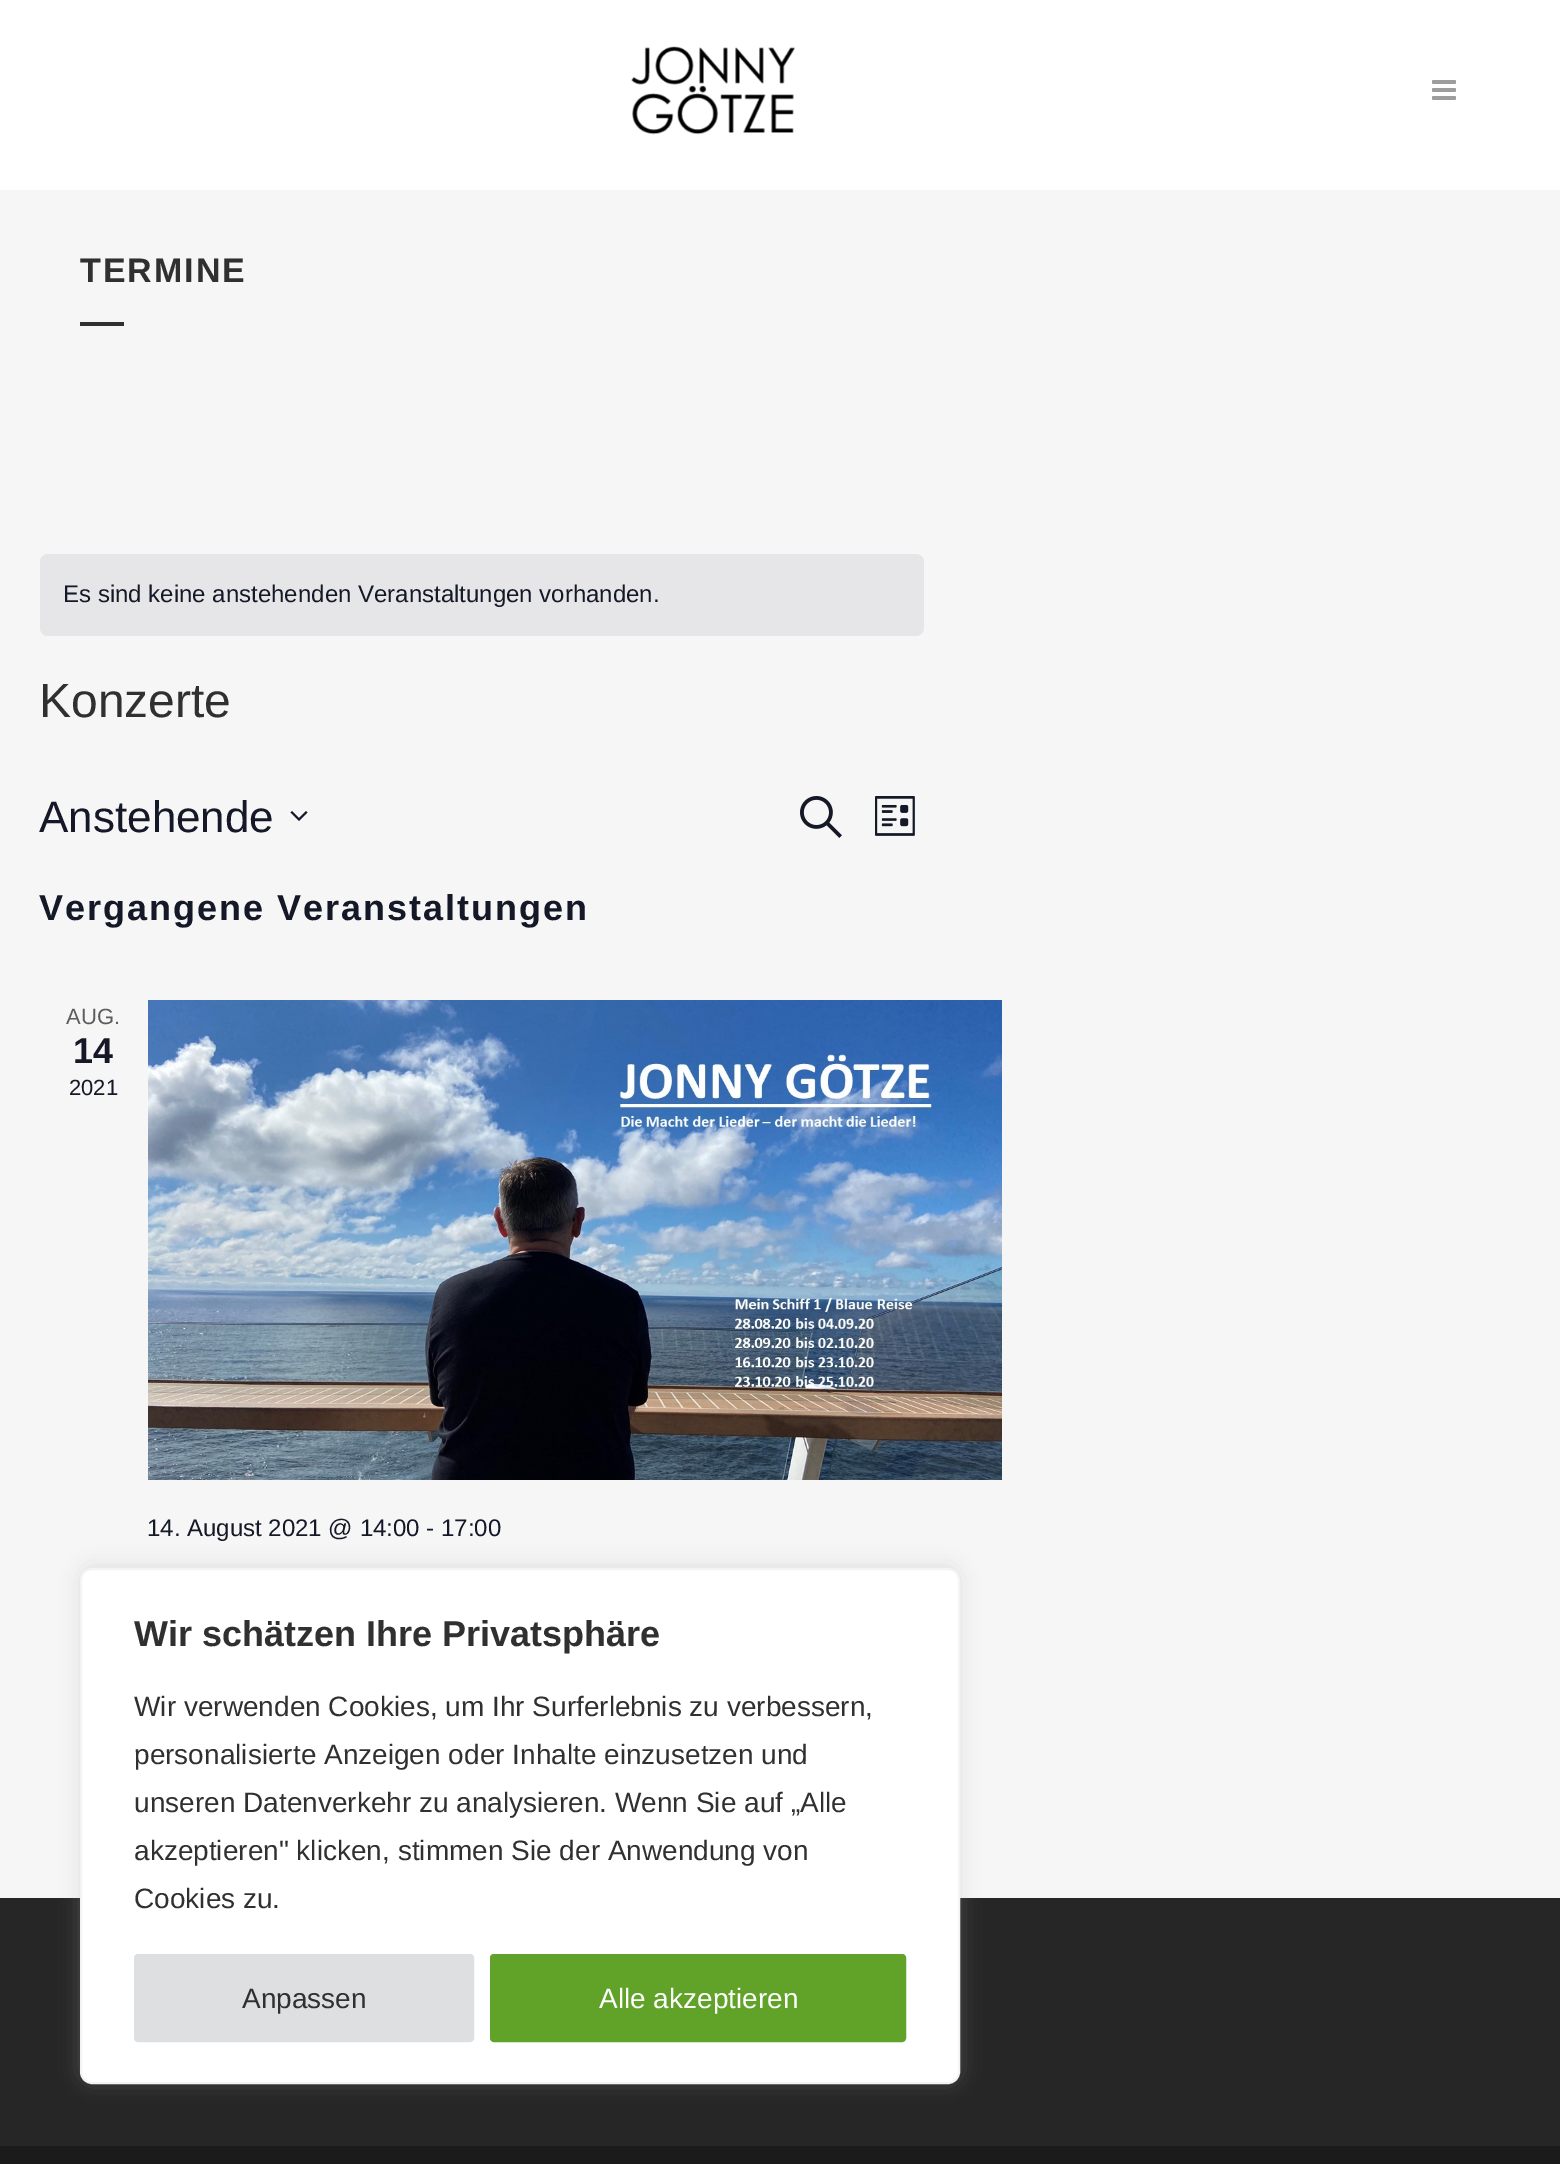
%!PS-Adobe-3.0
%%BoundingBox: 0 0 1560 2164
%%LanguageLevel: 3
%%Pages: 1
%%EndComments
%%BeginProlog
/setalpha { dup .setfillconstantalpha .setstrokeconstantalpha } def
/rrect { 5 dict begin { /r /h /w /y /x } { exch def } forall
  x r add y moveto x w add y 2 copy h add r arct x w add y h add x 1 index r arct
  x y h add x y r arct x y 2 copy exch w add exch r arct closepath end } def
/softshadow { 12 dict begin { /a /b /q /h /w /y /x } { exch def } forall gsave /was 0 def
  9 -2 -9 { dup b mul 4 div /e exch def 1 sub .425 mul 2.718 exch exp 1 add a .99 .min exch div /now exch def
    1 1 now sub 1 was sub div sub setalpha /was now def
    w h .min e 2 mul add 0 gt { x e sub y e sub w e 2 mul add h e 2 mul add
      q e add b .6 mul add w h .min 2 div e add .min 0 .max rrect fill } if } for grestore end } def
/drawimage { 5 dict begin { /h /w /y /x /name } { exch def } forall
  gsave x y translate w h scale
  w h 8 [w 0 0 h 0 0] name (r) file false 3 colorimage grestore end } def
%%EndProlog
%%BeginSetup
<< /PageSize [1560 2164] /PageUsesTransparency true >> setpagedevice
%%EndSetup
%%Page: 1 1
0 .pushpdf14devicefilter
0 2164 translate 1 -1 scale
4 setmiterlimit
0.965 setgray
0 0 1560 2164 rectfill
1 setgray
0 0 1560 190 rectfill
(images/1.raw) 631 46 164 89 drawimage
(images/2.raw) 1432 80 24 20 drawimage
0.188 setgray
80 322 44 4 rectfill
0.902 0.902 0.91 setrgbcolor
40 554 884 82 8 rrect fill
0.078 0.094 0.153 setrgbcolor
newpath 292 811 moveto 299 818 lineto 306 811 lineto 307.5 812.5 lineto 299 821 lineto 290.5 812.5 lineto closepath eofill
(images/3.raw) 800 796 42 42 drawimage
(images/4.raw) 875 796 40 40 drawimage
(images/5.raw) 148 1000 854 480 drawimage
0.149 setgray
0 1898 1560 248 rectfill
0.106 setgray
0 2146 1560 18 rectfill
0.675 0.671 0.671 setrgbcolor
80 1566 880 516 12 10 0.3 softshadow
1 setgray
81 1569 878 514 11 rrect gsave fill grestore
0.957 setgray
2 setlinewidth
stroke
0.871 0.875 0.878 setrgbcolor
136 1956 336 84 2 rrect gsave fill grestore
4 setlinewidth
stroke
0.38 0.635 0.161 setrgbcolor
492 1956 412 84 2 rrect gsave fill grestore
stroke
/LiberationSans-Bold [34 0 0 -34 0 0] selectfont
0.188 setgray
80 282 moveto 2 0 (TERMINE) ashow
/LiberationSans-Regular [24 0 0 -24 0 0] selectfont
0.078 0.094 0.153 setrgbcolor
63 602 moveto (Es sind keine anstehenden Veranstaltungen vorhanden.) show
/LiberationSans-Regular [48 0 0 -48 0 0] selectfont
0.188 setgray
39 717 moveto (Konzerte) show
/LiberationSans-Regular [44 0 0 -44 0 0] selectfont
0.078 0.094 0.153 setrgbcolor
39 832 moveto (Anstehende) show
/LiberationSans-Bold [36 0 0 -36 0 0] selectfont
39 920 moveto 2 0 (Vergangene Veranstaltungen) ashow
/LiberationSans-Regular [22 0 0 -22 0 0] selectfont
0.365 setgray
66 1024 moveto (AUG.) show
/LiberationSans-Bold [36 0 0 -36 0 0] selectfont
0.078 0.094 0.153 setrgbcolor
73 1063 moveto (14) show
/LiberationSans-Regular [22 0 0 -22 0 0] selectfont
69 1095 moveto (2021) show
/LiberationSans-Regular [24 0 0 -24 0 0] selectfont
147 1536 moveto (14. August 2021 @ 14:00 - 17:00) show
/LiberationSans-Bold [36 0 0 -36 0 0] selectfont
0.188 setgray
134 1646 moveto (Wir schätzen Ihre Privatsphäre) show
/LiberationSans-Regular [28 0 0 -28 0 0] selectfont
134 1716 moveto (Wir verwenden Cookies, um Ihr Surferlebnis zu verbessern,) show
134 1764 moveto (personalisierte Anzeigen oder Inhalte einzusetzen und) show
134 1812 moveto (unseren Datenverkehr zu analysieren. Wenn Sie auf „Alle) show
134 1860 moveto (akzeptieren" klicken, stimmen Sie der Anwendung von) show
134 1908 moveto (Cookies zu.) show
242 2008 moveto (Anpassen) show
1 setgray
599 2008 moveto (Alle akzeptieren) show
.poppdf14devicefilter showpage
%%EOF
